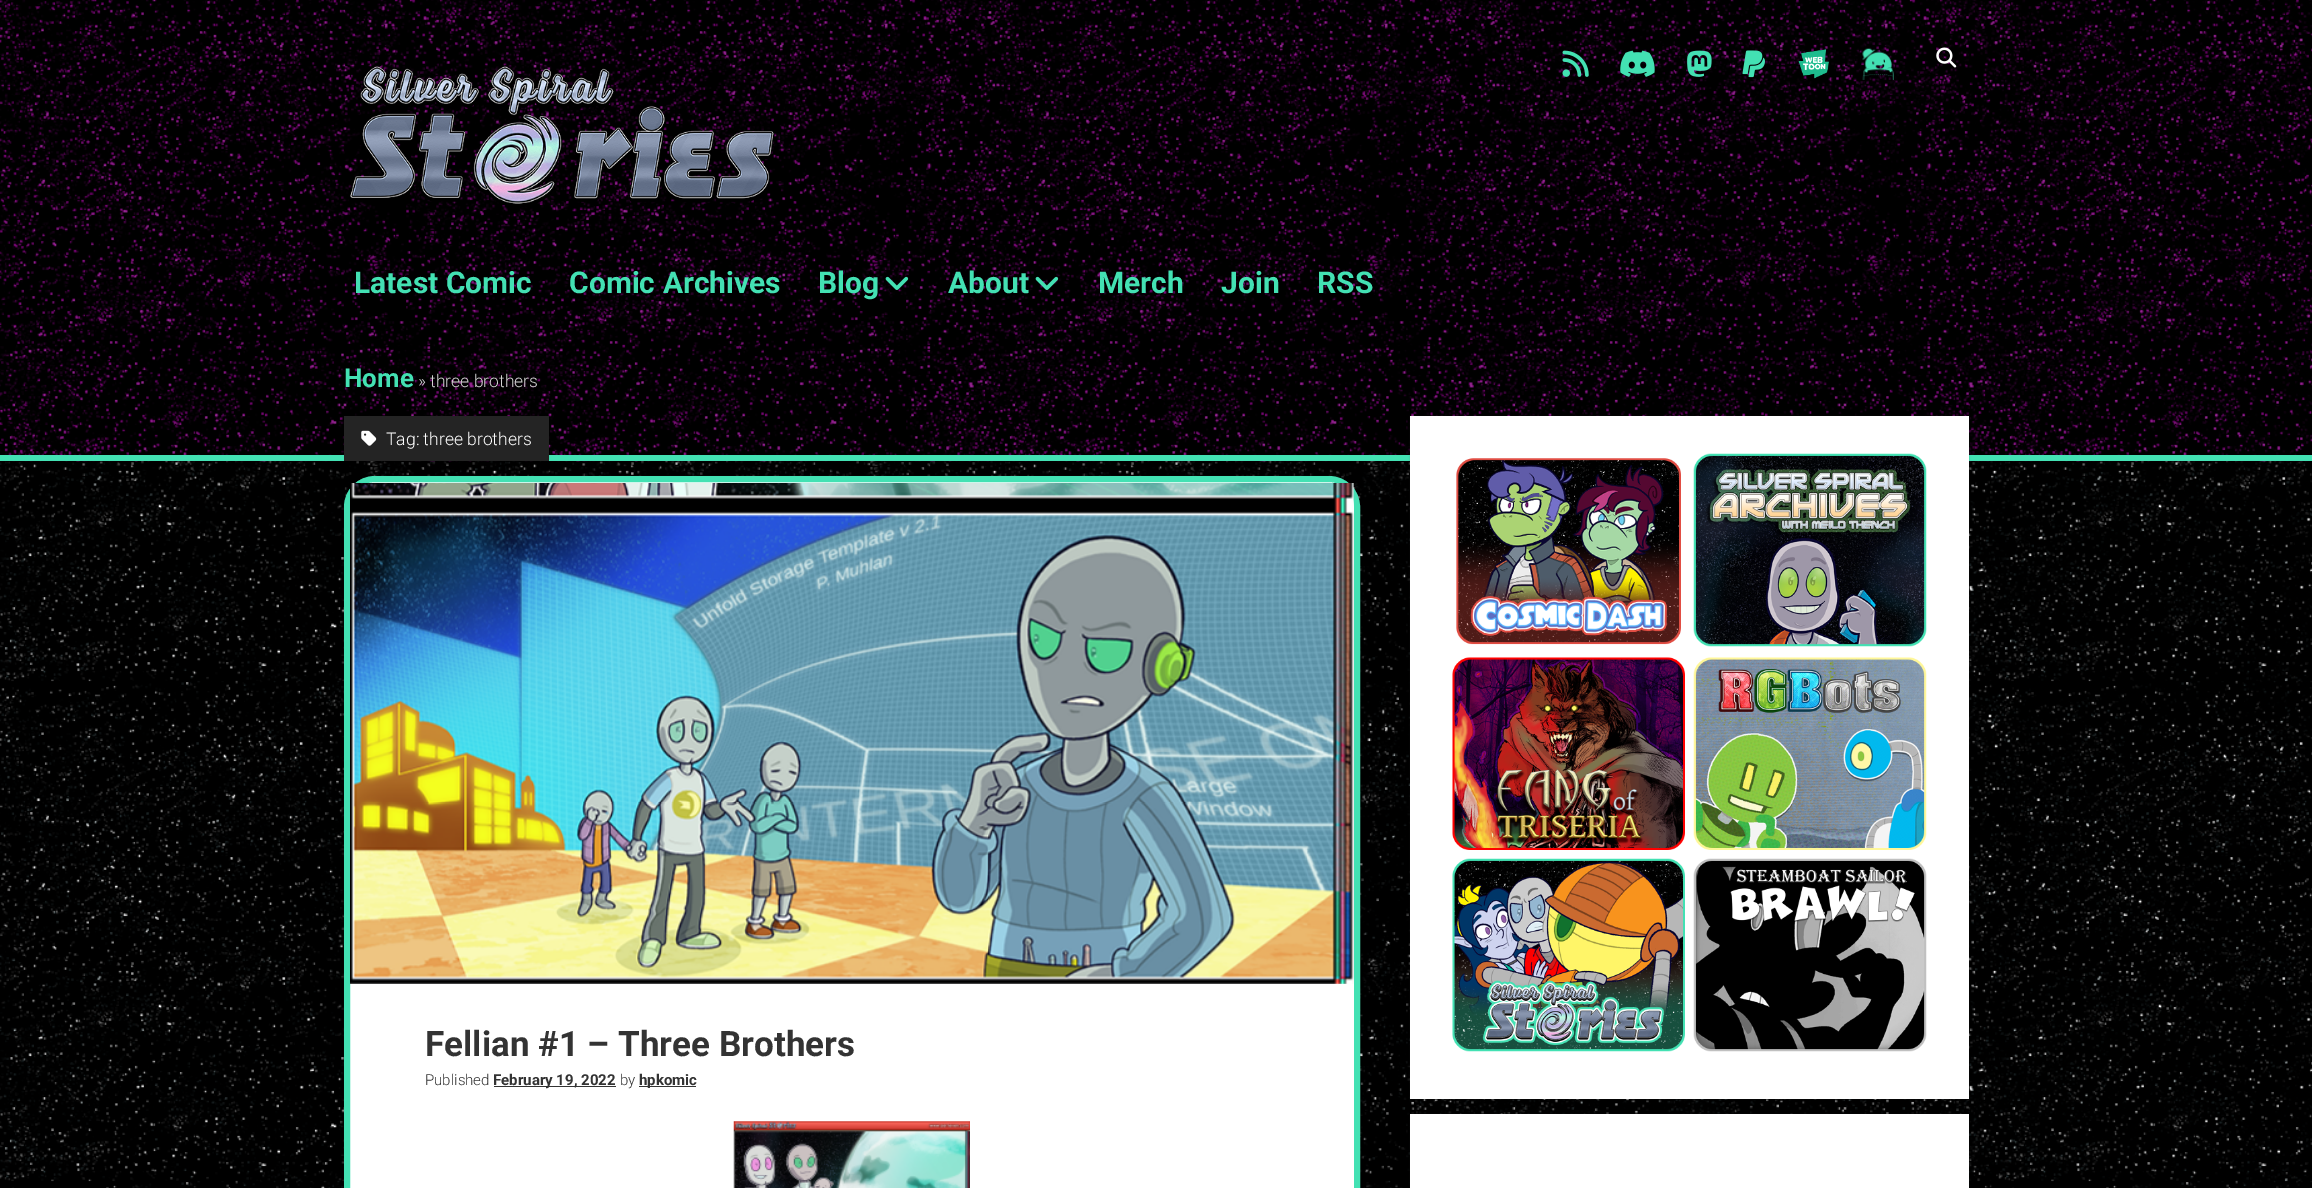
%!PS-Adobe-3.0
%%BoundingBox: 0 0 2312 1188
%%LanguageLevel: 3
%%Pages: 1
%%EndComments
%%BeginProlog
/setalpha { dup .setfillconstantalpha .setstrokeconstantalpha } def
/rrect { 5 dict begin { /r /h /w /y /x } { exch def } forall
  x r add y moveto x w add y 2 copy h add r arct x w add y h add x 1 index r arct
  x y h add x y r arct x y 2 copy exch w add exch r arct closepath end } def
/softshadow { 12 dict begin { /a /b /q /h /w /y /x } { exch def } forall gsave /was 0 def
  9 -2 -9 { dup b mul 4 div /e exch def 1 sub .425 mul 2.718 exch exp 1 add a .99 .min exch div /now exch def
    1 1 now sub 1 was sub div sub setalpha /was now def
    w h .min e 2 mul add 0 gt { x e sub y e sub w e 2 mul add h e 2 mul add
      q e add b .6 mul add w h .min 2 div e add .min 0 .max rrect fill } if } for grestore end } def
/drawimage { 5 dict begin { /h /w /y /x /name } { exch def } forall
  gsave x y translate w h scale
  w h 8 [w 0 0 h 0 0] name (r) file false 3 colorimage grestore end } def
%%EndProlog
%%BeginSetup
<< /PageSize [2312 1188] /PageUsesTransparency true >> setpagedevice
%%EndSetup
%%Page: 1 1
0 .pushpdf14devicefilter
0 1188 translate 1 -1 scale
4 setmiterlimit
1 setgray
0 0 2312 1188 rectfill
(images/1.raw) 0 461 2312 727 drawimage
(images/2.raw) 0 0 2312 462 drawimage
0.263 0.882 0.702 setrgbcolor
0 455 2312 6 rectfill
(images/3.raw) 350 66 425 141 drawimage
(images/4.raw) 1562 50 27 27 drawimage
(images/5.raw) 1620 50 35 27 drawimage
(images/6.raw) 1687 50 25 27 drawimage
(images/7.raw) 1742 50 23 28 drawimage
(images/8.raw) 1798 49 31 30 drawimage
(images/9.raw) 1862 48 32 32 drawimage
(images/10.raw) 1936 47 21 21 drawimage
(images/11.raw) 885 276 24 14 drawimage
(images/12.raw) 1035 276 24 14 drawimage
0.141 setgray
344 416 205 45 rectfill
(images/13.raw) 361 430 16 16 drawimage
0.227 setgray
344 476 1016 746 31 1 0.2 softshadow
1 setgray
347 479 1010 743 28 rrect gsave fill grestore
0.263 0.882 0.702 setrgbcolor
6 setlinewidth
stroke
(images/14.raw) 350 483 1004 501 drawimage
0.2 setgray
494 1086 122 1 rectfill
639 1086 57 1 rectfill
(images/15.raw) 733 1121 237 67 drawimage
0.227 setgray
1410 416 559 683 0 1 0.2 softshadow
1 setgray
1410 416 559 683 rectfill
(images/16.raw) 1456 458 225 187 drawimage
(images/17.raw) 1693 453 234 194 drawimage
(images/18.raw) 1452 657 233 193 drawimage
(images/19.raw) 1693 657 234 193 drawimage
(images/20.raw) 1452 858 233 194 drawimage
(images/21.raw) 1693 858 234 194 drawimage
0.227 setgray
1410 1114 559 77 0 1 0.2 softshadow
1 setgray
1410 1114 559 74 rectfill
/Roboto-Bold [30 0 0 -30 0 0] selectfont
0.263 0.882 0.702 setrgbcolor
354 293 moveto (Latest Comic) show
569 293 moveto (Comic Archives) show
818 293 moveto (Blog) show
948 293 moveto (About) show
1098 293 moveto (Merch) show
1221 293 moveto (Join) show
1317 293 moveto (RSS) show
/Roboto-Bold [26 0 0 -26 0 0] selectfont
344 387 moveto (Home) show
/Roboto-Light [17.5 0 0 -17.5 0 0] selectfont
0.831 setgray
418 387 moveto (» three brothers) show
1 setgray
386 445 moveto (Tag: three brothers) show
/Roboto-Bold [35 0 0 -35 0 0] selectfont
0.2 setgray
425 1056 moveto (Fellian #1 – Three Brothers) show
/Roboto-Light [15 0 0 -15 0 0] selectfont
425 1085 moveto (Published) show
/Roboto-Bold [15 0 0 -15 0 0] selectfont
493 1085 moveto (February 19, 2022) show
/Roboto-Light [15 0 0 -15 0 0] selectfont
620 1085 moveto (by) show
/Roboto-Bold [15 0 0 -15 0 0] selectfont
639 1085 moveto (hpkomic) show
.poppdf14devicefilter showpage
%%EOF
